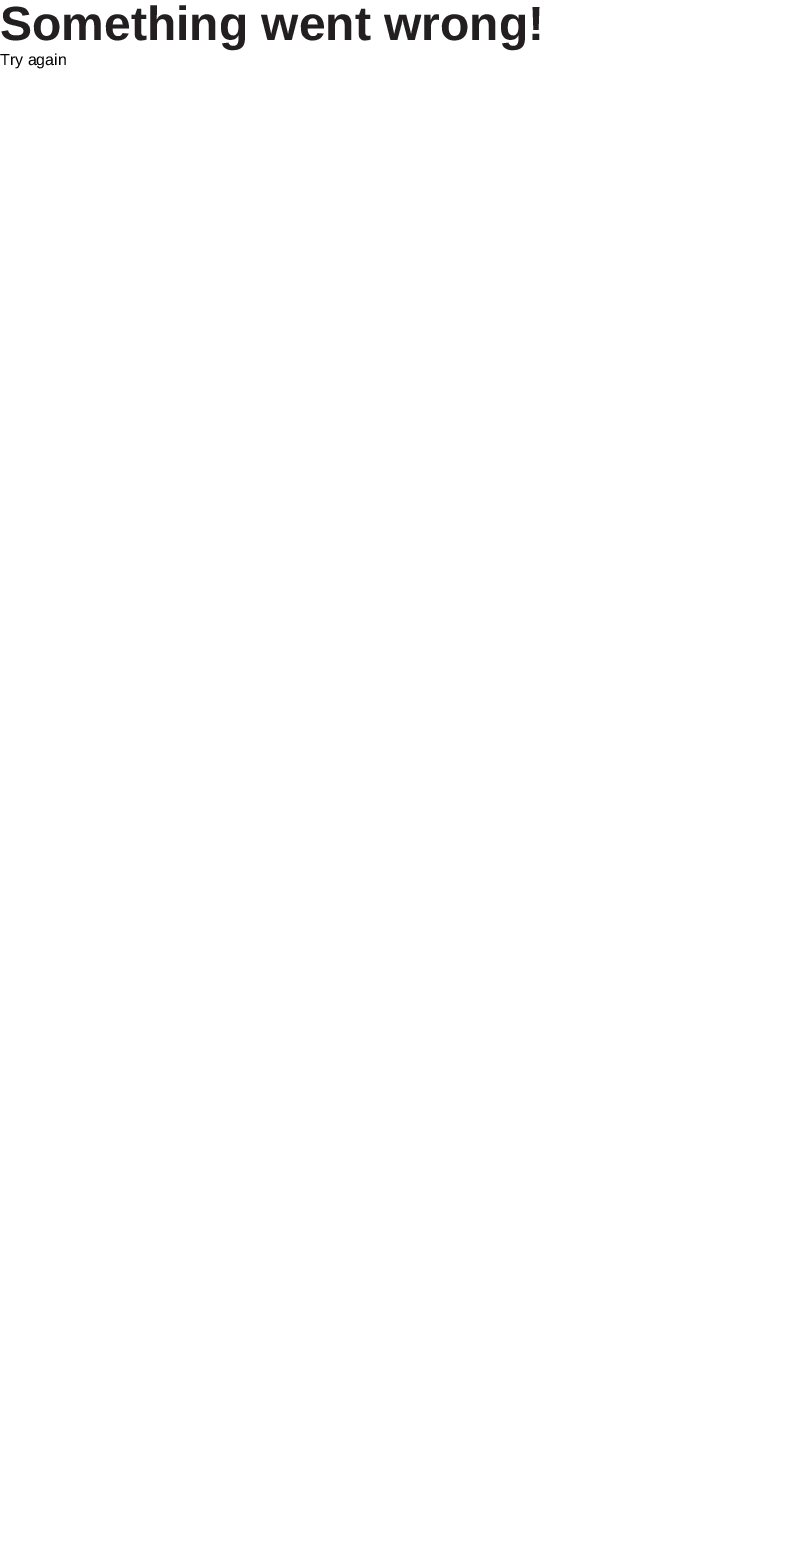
%!PS-Adobe-3.0
%%BoundingBox: 0 0 809 1544
%%LanguageLevel: 3
%%Pages: 1
%%EndComments
%%BeginProlog
%%EndProlog
%%BeginSetup
<< /PageSize [809 1544] >> setpagedevice
%%EndSetup
%%Page: 1 1
0 1544 translate 1 -1 scale
4 setmiterlimit
1 setgray
0 0 809 1544 rectfill
/LiberationSans-Bold [48 0 0 -48 0 0] selectfont
0.137 0.122 0.125 setrgbcolor
0 40 moveto (Something went wrong!) show
/LiberationSans-Regular [16 0 0 -16 0 0] selectfont
0 setgray
0 65 moveto (Try again) show
showpage
%%EOF
